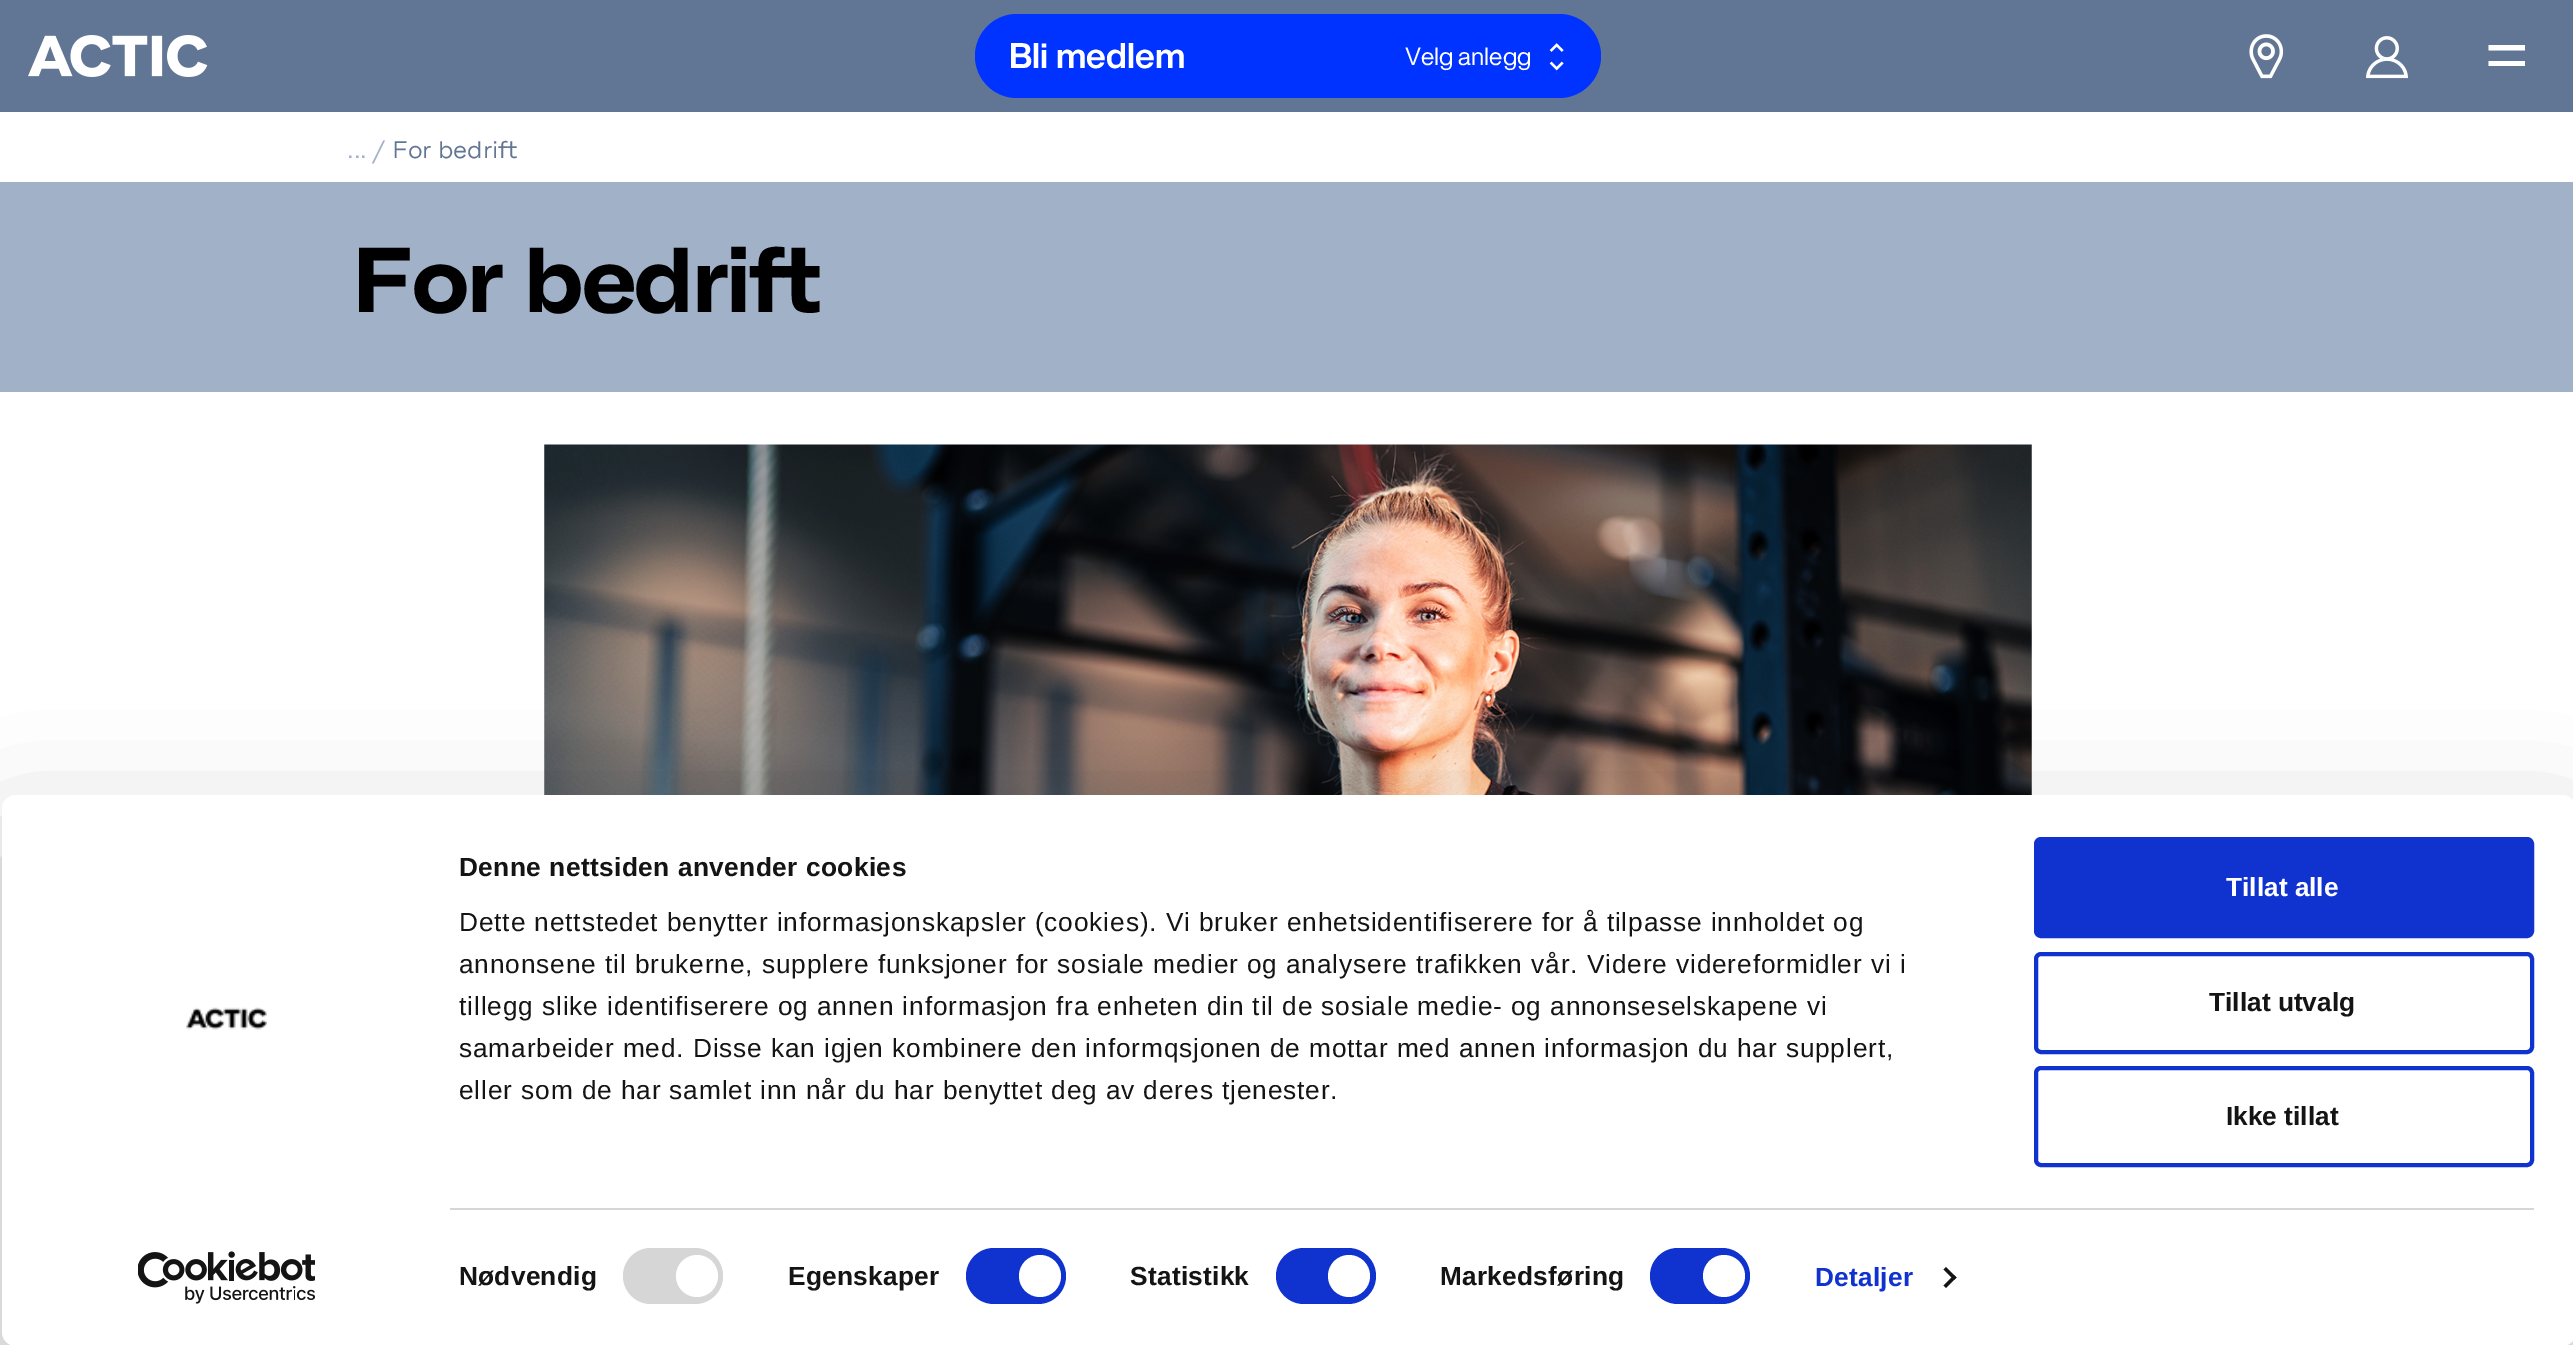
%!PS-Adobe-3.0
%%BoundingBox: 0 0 2573 1345
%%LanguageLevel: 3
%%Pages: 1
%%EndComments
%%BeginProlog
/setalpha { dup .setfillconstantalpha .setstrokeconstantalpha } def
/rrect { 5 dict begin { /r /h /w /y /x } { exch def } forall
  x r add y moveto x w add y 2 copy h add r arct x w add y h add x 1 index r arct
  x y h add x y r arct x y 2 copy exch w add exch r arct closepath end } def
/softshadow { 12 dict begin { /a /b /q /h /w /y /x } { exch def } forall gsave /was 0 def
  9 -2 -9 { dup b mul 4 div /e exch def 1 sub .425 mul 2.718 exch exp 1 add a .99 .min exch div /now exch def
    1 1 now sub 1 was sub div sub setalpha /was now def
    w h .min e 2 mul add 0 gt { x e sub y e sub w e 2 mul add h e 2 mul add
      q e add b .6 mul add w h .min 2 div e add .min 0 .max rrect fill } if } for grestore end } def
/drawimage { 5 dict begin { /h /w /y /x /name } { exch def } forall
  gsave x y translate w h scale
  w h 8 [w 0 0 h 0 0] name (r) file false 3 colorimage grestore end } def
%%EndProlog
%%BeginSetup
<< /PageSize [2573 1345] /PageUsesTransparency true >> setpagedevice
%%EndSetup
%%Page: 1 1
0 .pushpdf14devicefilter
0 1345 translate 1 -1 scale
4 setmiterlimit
1 setgray
0 0 2573 1345 rectfill
0.38 0.459 0.58 setrgbcolor
0 0 2573 112 rectfill
(images/1.raw) 28 35 180 42 drawimage
0 0.2 1 setrgbcolor
975 14 626 84 42 rrect fill
(images/2.raw) 1549 43 15 28 drawimage
(images/3.raw) 2249 34 35 45 drawimage
(images/4.raw) 2366 36 42 43 drawimage
1 setgray
newpath 2525 66 moveto 2525 61 lineto 2488.5 61 lineto 2488.5 66 lineto closepath 2525 50.5 moveto 2525 45 lineto 2488.5 45 lineto 2488.5 50.5 lineto closepath fill
0.631 0.694 0.784 setrgbcolor
0 182 2573 210 rectfill
(images/5.raw) 544 444 1488 351 drawimage
gsave
newpath 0 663 moveto 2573 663 lineto 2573 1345 lineto 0 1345 lineto closepath 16 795 moveto 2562 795 lineto 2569.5 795 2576 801.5 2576 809 curveto 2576 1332 lineto 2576 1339.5 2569.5 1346 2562 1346 curveto 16 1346 lineto 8.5 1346 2 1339.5 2 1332 curveto 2 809 lineto 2 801.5 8.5 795 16 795 curveto closepath eoclip newpath
0 setgray
2 847 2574 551 14 61 0.3 softshadow
grestore
1 setgray
2 795 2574 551 14 rrect fill
(images/6.raw) 186 1007 81 23 drawimage
(images/7.raw) 138 1251 177 53 drawimage
0.839 setgray
450 1208 2084 2 rectfill
623 1248 100 56 28 rrect fill
1 setgray
newpath 697 1276 21 0 360 arc closepath fill
0.063 0.196 0.812 setrgbcolor
966 1248 100 56 28 rrect fill
1 setgray
newpath 1040 1276 21 0 360 arc closepath fill
0.063 0.196 0.812 setrgbcolor
1276 1248 100 56 28 rrect fill
1 setgray
newpath 1349 1276 21 0 360 arc closepath fill
0.063 0.196 0.812 setrgbcolor
1650 1248 100 56 28 rrect fill
1 setgray
newpath 1724 1276 21 0 360 arc closepath fill
0.078 setgray
newpath 1946 1267 moveto 1956.5 1277.5 lineto 1954 1280 lineto 1943.5 1269.5 lineto closepath fill
newpath 1954 1275 moveto 1956.5 1277.5 lineto 1946 1288 lineto 1943.5 1285.5 lineto closepath fill
0.063 0.196 0.812 setrgbcolor
2036 839 496 97 5 rrect gsave fill grestore
4 setlinewidth
stroke
2036 954 496 98 5 rrect stroke
2036 1068 496 97 5 rrect stroke
/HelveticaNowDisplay-Bold [35 0 0 -35 0 0] selectfont
1 setgray
1009 68 moveto (Bli medlem) show
/HelveticaNowDisplay-Regular [24.5 0 0 -24.5 0 0] selectfont
1405 65 moveto (Velg anlegg) show
/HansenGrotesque-Regular [22.75 0 0 -22.75 0 0] selectfont
0.631 0.694 0.784 setrgbcolor
347 158 moveto (... /) show
0.38 0.459 0.58 setrgbcolor
392 158 moveto (For bedrift) show
/HansenGrotesque-Bold [87.5 0 0 -87.5 0 0] selectfont
0 setgray
351 312 moveto -1.75 0 (For bedrift) ashow
/LiberationSans-Bold [26.25 0 0 -26.25 0 0] selectfont
0.078 setgray
459 876 moveto 0.45 0 (Denne nettsiden anvender cookies) ashow
/LiberationSans-Regular [26.25 0 0 -26.25 0 0] selectfont
459 931 moveto 0.88 0 (Dette nettstedet benytter informasjonskapsler \(cookies\). Vi bruker enhetsidentifiserere for å tilpasse innholdet og) ashow
459 973 moveto 0.88 0 (annonsene til brukerne, supplere funksjoner for sosiale medier og analysere trafikken vår. Videre videreformidler vi i) ashow
459 1015 moveto 0.88 0 (tillegg slike identifiserere og annen informasjon fra enheten din til de sosiale medie- og annonseselskapene vi) ashow
459 1057 moveto 0.88 0 (samarbeider med. Disse kan igjen kombinere den informqsjonen de mottar med annen informasjon du har supplert,) ashow
gsave
460 847 1523 310 rectclip
459 1099 moveto 0.88 0 (eller som de har samlet inn når du har benyttet deg av deres tjenester.) ashow
grestore
/LiberationSans-Bold [26.25 0 0 -26.25 0 0] selectfont
459 1285 moveto 0.25 0 (Nødvendig) ashow
788 1285 moveto 0.25 0 (Egenskaper) ashow
1130 1285 moveto 0.25 0 (Statistikk) ashow
1440 1285 moveto 0.25 0 (Markedsføring) ashow
0.063 0.196 0.812 setrgbcolor
1815 1286 moveto 0.25 0 (Detaljer) ashow
1 setgray
2226 896 moveto (Tillat alle) show
0.078 setgray
2209 1011 moveto (Tillat utvalg) show
2226 1125 moveto (Ikke tillat) show
.poppdf14devicefilter showpage
%%EOF
